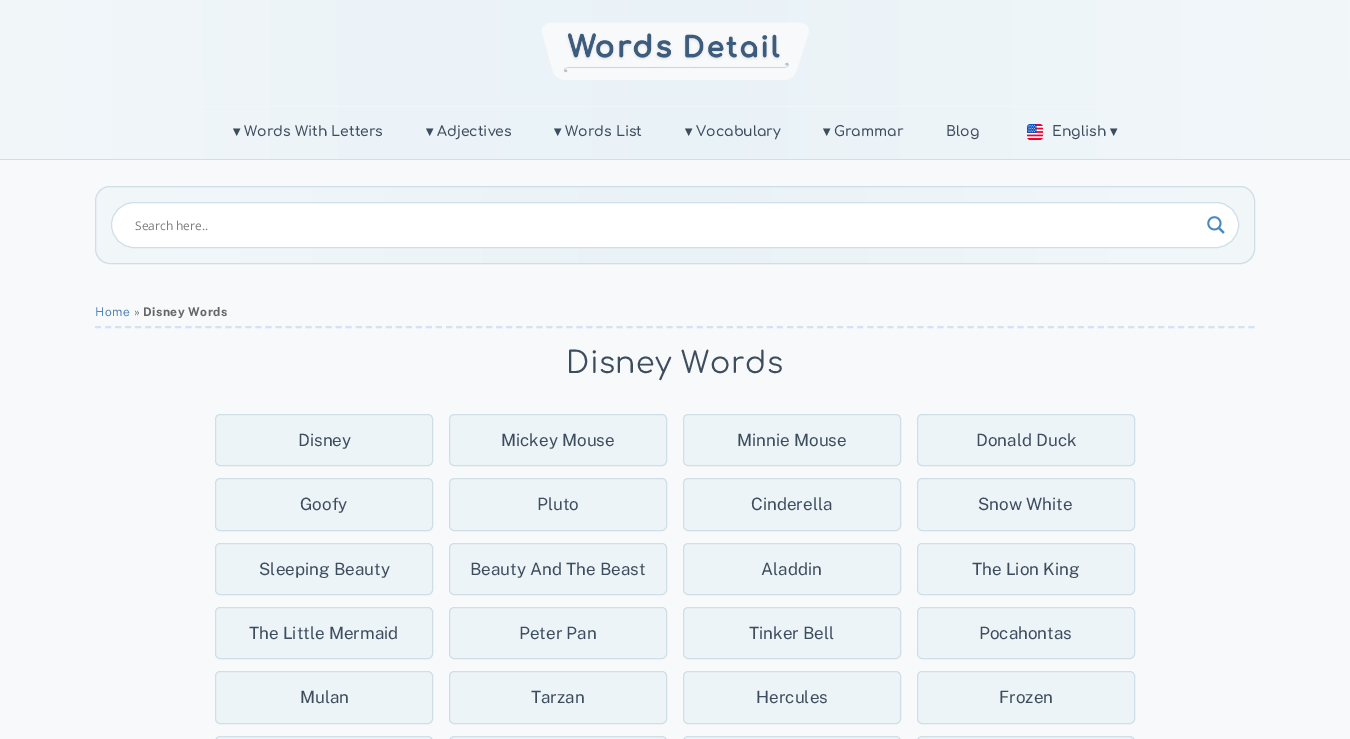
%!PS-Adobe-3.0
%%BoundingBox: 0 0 1350 739
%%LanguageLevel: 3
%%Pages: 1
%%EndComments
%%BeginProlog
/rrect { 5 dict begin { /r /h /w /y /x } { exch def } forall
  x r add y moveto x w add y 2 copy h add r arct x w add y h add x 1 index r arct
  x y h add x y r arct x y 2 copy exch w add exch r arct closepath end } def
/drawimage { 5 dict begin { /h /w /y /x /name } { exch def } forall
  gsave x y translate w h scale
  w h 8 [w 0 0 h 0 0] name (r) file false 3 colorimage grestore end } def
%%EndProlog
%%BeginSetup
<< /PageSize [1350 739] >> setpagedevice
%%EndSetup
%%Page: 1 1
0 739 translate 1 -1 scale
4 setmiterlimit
0.969 0.976 0.98 setrgbcolor
0 0 1350 739 rectfill
gsave newpath 0 0 moveto 1350 0 lineto 1350 159 lineto 0 159 lineto closepath clip newpath
<< /ShadingType 2 /ColorSpace /DeviceRGB /Coords [0 80 1350 79] /Extend [true true] /Function << /FunctionType 3 /Domain [0 1] /Functions [<< /FunctionType 2 /Domain [0 1] /C0 [0.949 0.969 0.98] /C1 [0.914 0.949 0.969] /N 1 >> << /FunctionType 2 /Domain [0 1] /C0 [0.914 0.949 0.969] /C1 [0.949 0.969 0.98] /N 1 >>] /Bounds [0.49] /Encode [0 1 0 1] >> >> shfill grestore
0.816 0.875 0.906 setrgbcolor
0 159 1350 1 rectfill
(images/1.raw) 541 22 268 58 drawimage
0.949 0.965 0.988 setrgbcolor
110 106 1125 1 rectfill
(images/2.raw) 1027 124 16 16 drawimage
gsave
95 186 1160 78 15 rrect clip newpath
gsave newpath 96 186 moveto 1254 186 lineto 1254 264 lineto 96 264 lineto closepath clip newpath
<< /ShadingType 2 /ColorSpace /DeviceRGB /Coords [96 225 1254 225] /Extend [true true] /Function << /FunctionType 3 /Domain [0 1] /Functions [<< /FunctionType 2 /Domain [0 1] /C0 [0.949 0.969 0.98] /C1 [0.914 0.949 0.969] /N 1 >> << /FunctionType 2 /Domain [0 1] /C0 [0.914 0.949 0.969] /C1 [0.949 0.969 0.98] /N 1 >>] /Bounds [0.5] /Encode [0 1 0 1] >> >> shfill grestore
grestore
0.816 0.875 0.906 setrgbcolor
95.5 186.5 1159 77 14.5 rrect stroke
1 setgray
111.5 202.5 1127 45 22.5 rrect gsave fill grestore
0.816 0.875 0.906 setrgbcolor
stroke
(images/3.raw) 1207 216 18 18 drawimage
0.827 0.89 0.953 setrgbcolor
2 setlinewidth
[6 4.03] 0 setdash
newpath 95 327 moveto 1255 327 lineto stroke
0.929 0.957 0.973 setrgbcolor
215.5 414.5 217 51 4.5 rrect gsave fill grestore
0.816 0.875 0.906 setrgbcolor
1 setlinewidth
[] 0 setdash
stroke
0.929 0.957 0.973 setrgbcolor
449.5 414.5 217 51 4.5 rrect gsave fill grestore
0.816 0.875 0.906 setrgbcolor
stroke
0.929 0.957 0.973 setrgbcolor
683.5 414.5 217 51 4.5 rrect gsave fill grestore
0.816 0.875 0.906 setrgbcolor
stroke
0.929 0.957 0.973 setrgbcolor
917.5 414.5 217 51 4.5 rrect gsave fill grestore
0.816 0.875 0.906 setrgbcolor
stroke
0.929 0.957 0.973 setrgbcolor
215.5 478.5 217 52 4.5 rrect gsave fill grestore
0.816 0.875 0.906 setrgbcolor
stroke
0.929 0.957 0.973 setrgbcolor
449.5 478.5 217 52 4.5 rrect gsave fill grestore
0.816 0.875 0.906 setrgbcolor
stroke
0.929 0.957 0.973 setrgbcolor
683.5 478.5 217 52 4.5 rrect gsave fill grestore
0.816 0.875 0.906 setrgbcolor
stroke
0.929 0.957 0.973 setrgbcolor
917.5 478.5 217 52 4.5 rrect gsave fill grestore
0.816 0.875 0.906 setrgbcolor
stroke
0.929 0.957 0.973 setrgbcolor
215.5 543.5 217 51 4.5 rrect gsave fill grestore
0.816 0.875 0.906 setrgbcolor
stroke
0.929 0.957 0.973 setrgbcolor
449.5 543.5 217 51 4.5 rrect gsave fill grestore
0.816 0.875 0.906 setrgbcolor
stroke
0.929 0.957 0.973 setrgbcolor
683.5 543.5 217 51 4.5 rrect gsave fill grestore
0.816 0.875 0.906 setrgbcolor
stroke
0.929 0.957 0.973 setrgbcolor
917.5 543.5 217 51 4.5 rrect gsave fill grestore
0.816 0.875 0.906 setrgbcolor
stroke
0.929 0.957 0.973 setrgbcolor
215.5 607.5 217 51 4.5 rrect gsave fill grestore
0.816 0.875 0.906 setrgbcolor
stroke
0.929 0.957 0.973 setrgbcolor
449.5 607.5 217 51 4.5 rrect gsave fill grestore
0.816 0.875 0.906 setrgbcolor
stroke
0.929 0.957 0.973 setrgbcolor
683.5 607.5 217 51 4.5 rrect gsave fill grestore
0.816 0.875 0.906 setrgbcolor
stroke
0.929 0.957 0.973 setrgbcolor
917.5 607.5 217 51 4.5 rrect gsave fill grestore
0.816 0.875 0.906 setrgbcolor
stroke
0.929 0.957 0.973 setrgbcolor
215.5 671.5 217 52 4.5 rrect gsave fill grestore
0.816 0.875 0.906 setrgbcolor
stroke
0.929 0.957 0.973 setrgbcolor
449.5 671.5 217 52 4.5 rrect gsave fill grestore
0.816 0.875 0.906 setrgbcolor
stroke
0.929 0.957 0.973 setrgbcolor
683.5 671.5 217 52 4.5 rrect gsave fill grestore
0.816 0.875 0.906 setrgbcolor
stroke
0.929 0.957 0.973 setrgbcolor
917.5 671.5 217 52 4.5 rrect gsave fill grestore
0.816 0.875 0.906 setrgbcolor
stroke
0.929 0.957 0.973 setrgbcolor
215.5 736.5 217 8 4.5 rrect gsave fill grestore
0.816 0.875 0.906 setrgbcolor
stroke
0.929 0.957 0.973 setrgbcolor
449.5 736.5 217 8 4.5 rrect gsave fill grestore
0.816 0.875 0.906 setrgbcolor
stroke
0.929 0.957 0.973 setrgbcolor
683.5 736.5 217 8 4.5 rrect gsave fill grestore
0.816 0.875 0.906 setrgbcolor
stroke
0.929 0.957 0.973 setrgbcolor
917.5 736.5 217 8 4.5 rrect gsave fill grestore
0.816 0.875 0.906 setrgbcolor
stroke
/DejaVuSans-Bold [14 0 0 -14 0 0] selectfont
0.239 0.302 0.365 setrgbcolor
233 136 moveto (▾) show
/Comfortaa-SemiBold [14 0 0 -14 0 0] selectfont
244 136 moveto (Words With Letters) show
/DejaVuSans-Bold [14 0 0 -14 0 0] selectfont
426 136 moveto (▾) show
/Comfortaa-SemiBold [14 0 0 -14 0 0] selectfont
437 136 moveto (Adjectives) show
/DejaVuSans-Bold [14 0 0 -14 0 0] selectfont
554 136 moveto (▾) show
/Comfortaa-SemiBold [14 0 0 -14 0 0] selectfont
565 136 moveto (Words List) show
/DejaVuSans-Bold [14 0 0 -14 0 0] selectfont
685 136 moveto (▾) show
/Comfortaa-SemiBold [14 0 0 -14 0 0] selectfont
696 136 moveto (Vocabulary) show
/DejaVuSans-Bold [14 0 0 -14 0 0] selectfont
823 136 moveto (▾) show
/Comfortaa-SemiBold [14 0 0 -14 0 0] selectfont
834 136 moveto (Grammar) show
946 136 moveto (Blog) show
1052 136 moveto (English) show
/DejaVuSans-Bold [14 0 0 -14 0 0] selectfont
1110 136 moveto (▾) show
/OpenSans-Regular [12 0 0 -12 0 0] selectfont
0.49 setgray
135 230 moveto (Search here..) show
/PublicSans-Regular [12 0 0 -12 0 0] selectfont
0.345 0.529 0.714 setrgbcolor
95 316 moveto 0.5 0 (Home) ashow
0.4 setgray
134 316 moveto 0.5 0 (») ashow
/PublicSans-Bold [12 0 0 -12 0 0] selectfont
143 316 moveto 0.5 0 (Disney Words) ashow
/Comfortaa-Regular [30 0 0 -30 0 0] selectfont
0.239 0.302 0.365 setrgbcolor
566 373 moveto 0.5 0 (Disney Words) ashow
/PublicSans-Regular [17 0 0 -17 0 0] selectfont
298 446 moveto (Disney) show
501 446 moveto (Mickey Mouse) show
737 446 moveto (Minnie Mouse) show
976 446 moveto (Donald Duck) show
300 510 moveto (Goofy) show
537 510 moveto (Pluto) show
751 510 moveto (Cinderella) show
978 510 moveto (Snow White) show
259 575 moveto (Sleeping Beauty) show
470 575 moveto (Beauty And The Beast) show
761 575 moveto (Aladdin) show
972 575 moveto (The Lion King) show
249 639 moveto (The Little Mermaid) show
519 639 moveto (Peter Pan) show
749 639 moveto (Tinker Bell) show
979 639 moveto (Pocahontas) show
300 703 moveto (Mulan) show
531 703 moveto (Tarzan) show
756 703 moveto (Hercules) show
999 703 moveto (Frozen) show
showpage
%%EOF
